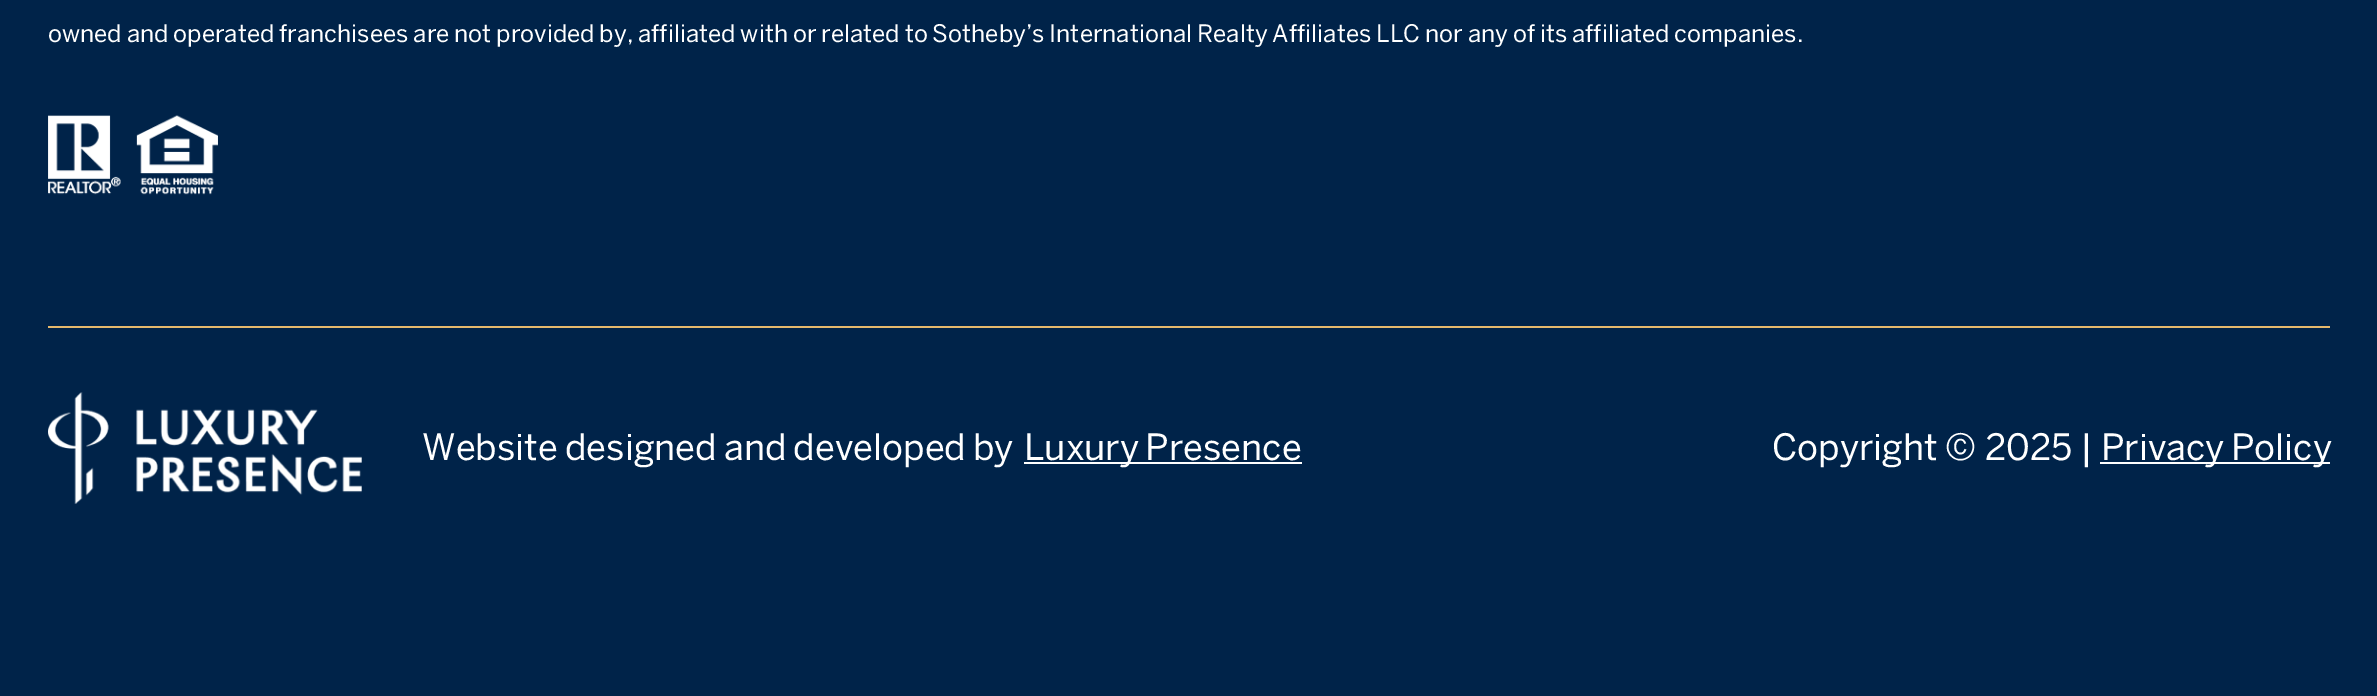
%!PS-Adobe-3.0
%%BoundingBox: 0 0 2377 696
%%LanguageLevel: 3
%%Pages: 1
%%EndComments
%%BeginProlog
/drawimage { 5 dict begin { /h /w /y /x /name } { exch def } forall
  gsave x y translate w h scale
  w h 8 [w 0 0 h 0 0] name (r) file false 3 colorimage grestore end } def
%%EndProlog
%%BeginSetup
<< /PageSize [2377 696] >> setpagedevice
%%EndSetup
%%Page: 1 1
0 696 translate 1 -1 scale
4 setmiterlimit
0 0.137 0.286 setrgbcolor
0 0 2377 696 rectfill
(images/1.raw) 48 115 170 80 drawimage
0.898 0.722 0.424 setrgbcolor
48 326 2282 2 rectfill
(images/2.raw) 48 392 314 112 drawimage
1 setgray
1024 462 278 2 rectfill
2100 462 230 2 rectfill
/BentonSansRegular-Regular [24 0 0 -24 0 0] selectfont
48 42 moveto -0.75 0 32 (owned and operated franchisees are not provided by, affiliated with or related to Sotheby’s International Realty Affiliates LLC nor any of its affiliated companies.) widthshow
/BentonSansRegular-Regular [36 0 0 -36 0 0] selectfont
422 460 moveto -1.5 0 32 (Website designed and developed by) widthshow
1024 460 moveto -2 0 32 (Luxury Presence) widthshow
1772 460 moveto -1 0 32 (Copyright ©) widthshow
1985 460 moveto (2025) show
2080 460 moveto (|) show
2101 460 moveto -2 0 32 (Privacy Policy) widthshow
showpage
%%EOF
